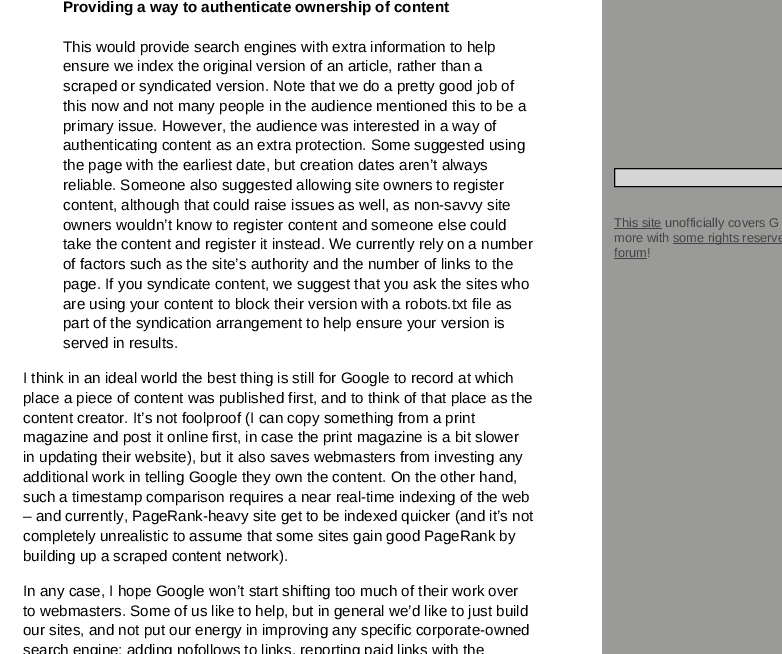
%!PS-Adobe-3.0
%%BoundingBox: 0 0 782 654
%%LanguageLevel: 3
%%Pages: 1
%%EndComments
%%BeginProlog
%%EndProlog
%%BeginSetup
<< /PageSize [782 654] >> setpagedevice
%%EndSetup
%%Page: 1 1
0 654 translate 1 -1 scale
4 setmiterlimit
1 setgray
0 0 782 654 rectfill
0.604 0.604 0.6 setrgbcolor
602 0 180 654 rectfill
0.835 setgray
newpath 614.5 168.5 moveto 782.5 168.5 lineto 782.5 186.5 lineto 614.5 186.5 lineto closepath gsave fill grestore
0 setgray
stroke
0.263 setgray
614 228 48 1 rectfill
673 243 109 1 rectfill
614 258 33 1 rectfill
/LiberationSans-Bold [15.2 0 0 -15.2 0 0] selectfont
0 setgray
63 12 moveto (Providing a way to authenticate ownership of content) show
/LiberationSans-Regular [15.2 0 0 -15.2 0 0] selectfont
63 52 moveto (This would provide search engines with extra information to help) show
63 71 moveto (ensure we index the original version of an article, rather than a) show
63 91 moveto (scraped or syndicated version. Note that we do a pretty good job of) show
63 111 moveto (this now and not many people in the audience mentioned this to be a) show
63 131 moveto (primary issue. However, the audience was interested in a way of) show
63 150 moveto (authenticating content as an extra protection. Some suggested using) show
63 170 moveto (the page with the earliest date, but creation dates aren’t always) show
63 190 moveto (reliable. Someone also suggested allowing site owners to register) show
63 210 moveto (content, although that could raise issues as well, as non-savvy site) show
63 230 moveto (owners wouldn’t know to register content and someone else could) show
63 249 moveto (take the content and register it instead. We currently rely on a number) show
63 269 moveto (of factors such as the site’s authority and the number of links to the) show
63 289 moveto (page. If you syndicate content, we suggest that you ask the sites who) show
63 309 moveto (are using your content to block their version with a robots.txt file as) show
63 328 moveto (part of the syndication arrangement to help ensure your version is) show
63 348 moveto (served in results.) show
23 383 moveto (I think in an ideal world the best thing is still for Google to record at which) show
23 403 moveto (place a piece of content was published first, and to think of that place as the) show
23 423 moveto (content creator. It’s not foolproof \(I can copy something from a print) show
23 442 moveto (magazine and post it online first, in case the print magazine is a bit slower) show
23 462 moveto (in updating their website\), but it also saves webmasters from investing any) show
23 482 moveto (additional work in telling Google they own the content. On the other hand,) show
23 502 moveto (such a timestamp comparison requires a near real-time indexing of the web) show
23 521 moveto (– and currently, PageRank-heavy site get to be indexed quicker \(and it’s not) show
23 541 moveto (completely unrealistic to assume that some sites gain good PageRank by) show
23 561 moveto (building up a scraped content network\).) show
23 596 moveto (In any case, I hope Google won’t start shifting too much of their work over) show
23 616 moveto (to webmasters. Some of us like to help, but in general we’d like to just build) show
23 635 moveto (our sites, and not put our energy in improving any specific corporate-owned) show
23 655 moveto (search engine; adding nofollows to links, reporting paid links with the) show
/LiberationSans-Regular [12.75 0 0 -12.75 0 0] selectfont
0.263 setgray
614 227 moveto (This site unofficially covers G) show
614 242 moveto (more with) show
673 242 moveto (some rights reserve) show
614 257 moveto (forum!) show
showpage
%%EOF
